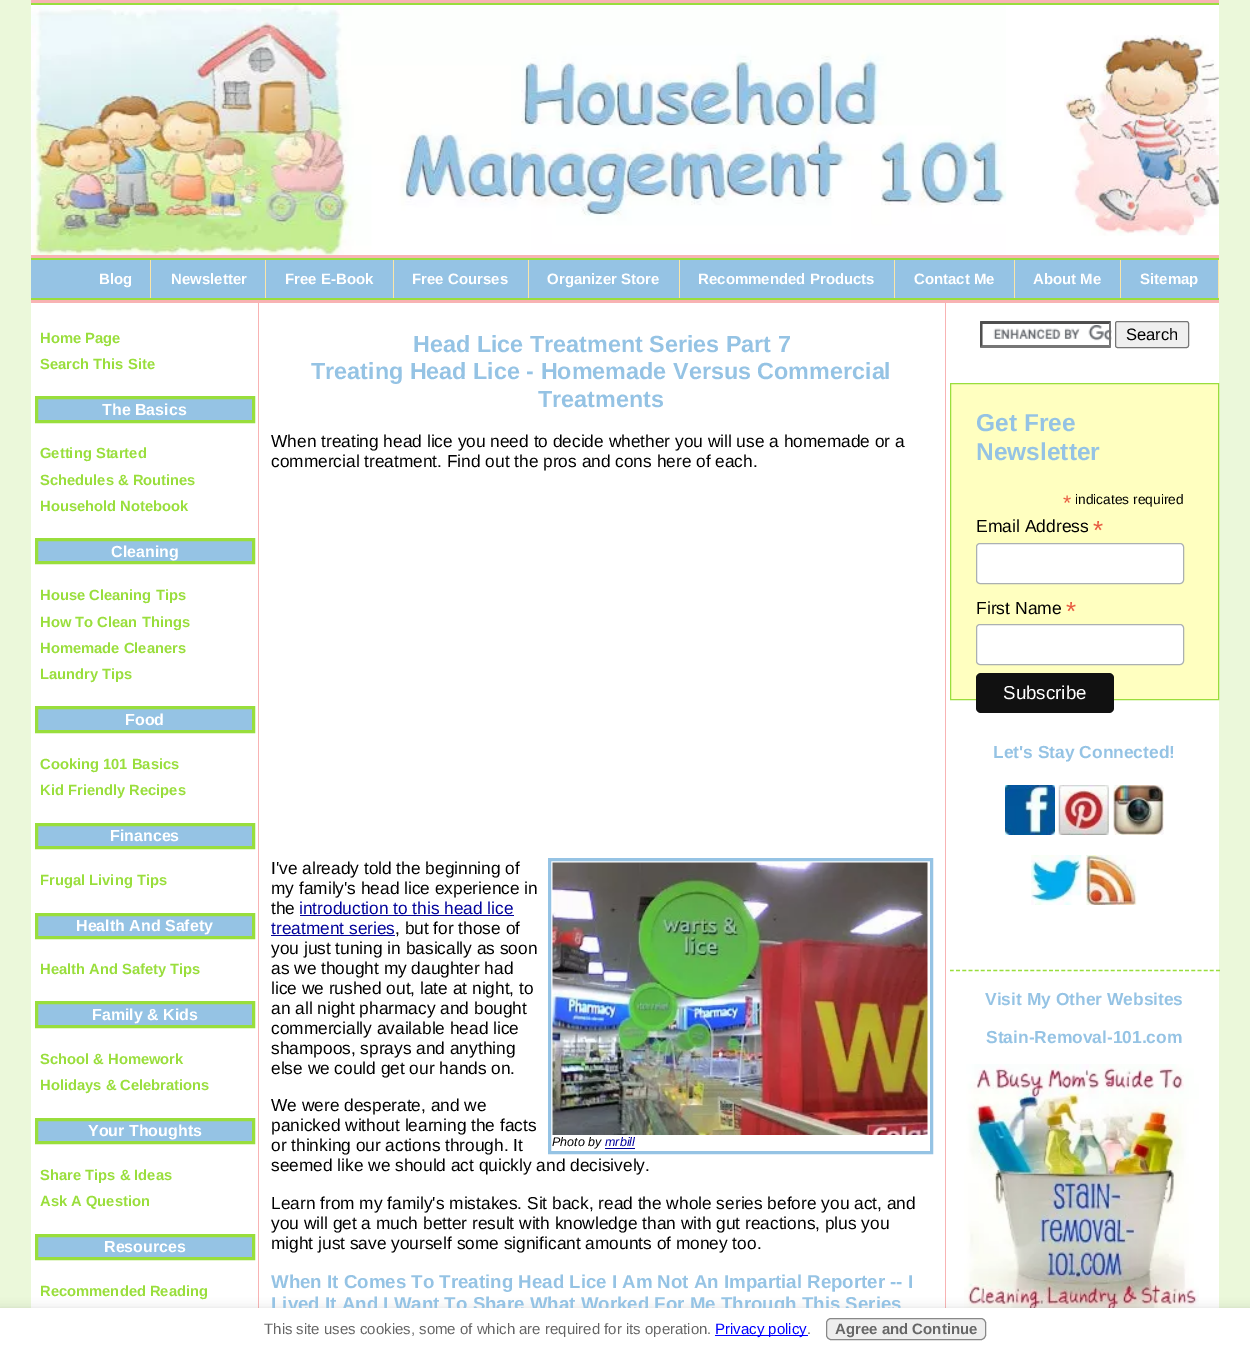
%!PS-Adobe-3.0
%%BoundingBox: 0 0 1250 1349
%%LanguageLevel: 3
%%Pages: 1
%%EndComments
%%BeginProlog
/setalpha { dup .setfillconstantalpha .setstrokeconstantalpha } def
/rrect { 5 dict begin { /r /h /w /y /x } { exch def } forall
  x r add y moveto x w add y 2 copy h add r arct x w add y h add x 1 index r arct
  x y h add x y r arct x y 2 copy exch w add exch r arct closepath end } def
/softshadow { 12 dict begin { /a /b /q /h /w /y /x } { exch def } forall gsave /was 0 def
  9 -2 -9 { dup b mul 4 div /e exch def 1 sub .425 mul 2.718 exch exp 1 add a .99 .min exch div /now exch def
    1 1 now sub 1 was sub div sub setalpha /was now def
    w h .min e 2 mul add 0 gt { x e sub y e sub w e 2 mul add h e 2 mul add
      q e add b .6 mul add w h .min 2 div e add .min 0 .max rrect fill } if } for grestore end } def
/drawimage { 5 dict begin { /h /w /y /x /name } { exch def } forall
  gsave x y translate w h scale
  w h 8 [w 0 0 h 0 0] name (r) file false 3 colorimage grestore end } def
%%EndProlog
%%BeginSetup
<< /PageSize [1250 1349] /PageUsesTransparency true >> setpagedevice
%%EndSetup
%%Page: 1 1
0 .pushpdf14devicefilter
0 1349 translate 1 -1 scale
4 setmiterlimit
0.922 0.973 0.855 setrgbcolor
0 0 1250 1349 rectfill
0.973 0.702 0.702 setrgbcolor
31 0 1188 3 rectfill
0.6 0.871 0.235 setrgbcolor
31 3 1188 2 rectfill
1 setgray
31 5 1188 250 rectfill
(images/1.raw) 1064 35 155 201 drawimage
(images/2.raw) 31 5 976 250 drawimage
0.973 0.702 0.702 setrgbcolor
31 255 1188 3 rectfill
0.6 0.871 0.235 setrgbcolor
31 258 1188 2 rectfill
0.584 0.765 0.894 setrgbcolor
31 260 1187 38 rectfill
0.98 0.902 0.663 setrgbcolor
150 260 1 38 rectfill
265 260 1 38 rectfill
393 260 1 38 rectfill
528 260 1 38 rectfill
679 260 1 38 rectfill
894 260 1 38 rectfill
1014 260 1 38 rectfill
1120 260 1 38 rectfill
1218 260 1 38 rectfill
0.6 0.871 0.235 setrgbcolor
31 298 1188 2 rectfill
0.973 0.702 0.702 setrgbcolor
31 300 1188 3 rectfill
1 setgray
31 303 227 1005 rectfill
0.584 0.765 0.894 setrgbcolor
newpath 36.5 397.5 moveto 253.5 397.5 lineto 253.5 421.5 lineto 36.5 421.5 lineto closepath gsave fill grestore
0.6 0.871 0.235 setrgbcolor
3 setlinewidth
stroke
0.584 0.765 0.894 setrgbcolor
newpath 36.5 539.5 moveto 253.5 539.5 lineto 253.5 562.5 lineto 36.5 562.5 lineto closepath gsave fill grestore
0.6 0.871 0.235 setrgbcolor
stroke
0.584 0.765 0.894 setrgbcolor
newpath 36.5 707.5 moveto 253.5 707.5 lineto 253.5 731.5 lineto 36.5 731.5 lineto closepath gsave fill grestore
0.6 0.871 0.235 setrgbcolor
stroke
0.584 0.765 0.894 setrgbcolor
newpath 36.5 824.5 moveto 253.5 824.5 lineto 253.5 847.5 lineto 36.5 847.5 lineto closepath gsave fill grestore
0.6 0.871 0.235 setrgbcolor
stroke
0.584 0.765 0.894 setrgbcolor
newpath 36.5 914.5 moveto 253.5 914.5 lineto 253.5 937.5 lineto 36.5 937.5 lineto closepath gsave fill grestore
0.6 0.871 0.235 setrgbcolor
stroke
0.584 0.765 0.894 setrgbcolor
newpath 36.5 1002.5 moveto 253.5 1002.5 lineto 253.5 1026.5 lineto 36.5 1026.5 lineto closepath gsave fill grestore
0.6 0.871 0.235 setrgbcolor
stroke
0.584 0.765 0.894 setrgbcolor
newpath 36.5 1119.5 moveto 253.5 1119.5 lineto 253.5 1142.5 lineto 36.5 1142.5 lineto closepath gsave fill grestore
0.6 0.871 0.235 setrgbcolor
stroke
0.584 0.765 0.894 setrgbcolor
newpath 36.5 1235.5 moveto 253.5 1235.5 lineto 253.5 1258.5 lineto 36.5 1258.5 lineto closepath gsave fill grestore
0.6 0.871 0.235 setrgbcolor
stroke
1 setgray
259 303 686 1005 rectfill
0.973 0.702 0.702 setrgbcolor
945 303 1 1005 rectfill
258 303 1 1005 rectfill
0 0 0.6 setrgbcolor
300 915 214 1 rectfill
271 935 124 1 rectfill
0.584 0.765 0.894 setrgbcolor
549.5 859.5 382 293 rectstroke
(images/3.raw) 552 862 376 273 drawimage
0 0 0.6 setrgbcolor
605 1148 30 1 rectfill
1 setgray
946 303 273 1005 rectfill
(images/4.raw) 993 325 119 16 drawimage
0.31 setgray
newpath 980 321 moveto 1111 321 lineto 1109 324 lineto 982 324 lineto closepath fill
0.463 setgray
newpath 1111 321 moveto 1111 347.5 lineto 1109 345 lineto 1109 324 lineto closepath fill
newpath 1111 348 moveto 980 348 lineto 982 345 lineto 1109 345 lineto closepath fill
0.31 setgray
newpath 980 347.5 moveto 980 321 lineto 982.5 324 lineto 982.5 345 lineto closepath fill
0.937 setgray
1115.5 321.5 73 26 2 rrect gsave fill grestore
0.463 setgray
1 setlinewidth
stroke
1 1 0.753 setrgbcolor
newpath 950.5 383.5 moveto 1218.5 383.5 lineto 1218.5 699.5 lineto 950.5 699.5 lineto closepath gsave fill grestore
0.6 0.871 0.235 setrgbcolor
stroke
1 setgray
976.5 543.5 207 40 3.5 rrect gsave fill grestore
0.671 0.69 0.698 setrgbcolor
stroke
1 setgray
976.5 624.5 207 40 3.5 rrect gsave fill grestore
0.671 0.69 0.698 setrgbcolor
stroke
0.067 setgray
976 673 138 40 5 rrect fill
(images/5.raw) 1005 785 50 50 drawimage
(images/6.raw) 1058 785 51 50 drawimage
(images/7.raw) 1113 785 51 50 drawimage
(images/8.raw) 1031 855 51 50 drawimage
(images/9.raw) 1086 855 51 50 drawimage
0.6 0.871 0.235 setrgbcolor
1.2 setlinewidth
[3.75 2.44] 0 setdash
newpath 950 970.5 moveto 1220 970.5 lineto stroke
(images/10.raw) 964 1064 235 244 drawimage
0 setgray
-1 1311 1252 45 0 6 0.2 softshadow
/LiberationSans-Bold [15 0 0 -15 0 0] selectfont
1 setgray
99 284 moveto (Blog) show
171 284 moveto (Newsletter) show
285 284 moveto (Free E-Book) show
412 284 moveto (Free Courses) show
547 284 moveto (Organizer Store) show
698 284 moveto (Recommended Products) show
914 284 moveto (Contact Me) show
1033 284 moveto (About Me) show
1140 284 moveto (Sitemap) show
/LiberationSans-Bold [14.75 0 0 -14.75 0 0] selectfont
0.6 0.871 0.235 setrgbcolor
40 343 moveto (Home Page) show
40 369 moveto (Search This Site) show
/LiberationSans-Bold [16 0 0 -16 0 0] selectfont
1 setgray
102 415 moveto (The Basics) show
/LiberationSans-Bold [14.75 0 0 -14.75 0 0] selectfont
0.6 0.871 0.235 setrgbcolor
40 458 moveto (Getting Started) show
40 485 moveto (Schedules & Routines) show
40 511 moveto (Household Notebook) show
/LiberationSans-Bold [16 0 0 -16 0 0] selectfont
1 setgray
111 557 moveto (Cleaning) show
/LiberationSans-Bold [14.75 0 0 -14.75 0 0] selectfont
0.6 0.871 0.235 setrgbcolor
40 600 moveto (House Cleaning Tips) show
40 627 moveto (How To Clean Things) show
40 653 moveto (Homemade Cleaners) show
40 679 moveto (Laundry Tips) show
/LiberationSans-Bold [16 0 0 -16 0 0] selectfont
1 setgray
125 725 moveto (Food) show
/LiberationSans-Bold [14.75 0 0 -14.75 0 0] selectfont
0.6 0.871 0.235 setrgbcolor
40 769 moveto (Cooking 101 Basics) show
40 795 moveto (Kid Friendly Recipes) show
/LiberationSans-Bold [16 0 0 -16 0 0] selectfont
1 setgray
110 841 moveto (Finances) show
/LiberationSans-Bold [14.75 0 0 -14.75 0 0] selectfont
0.6 0.871 0.235 setrgbcolor
40 885 moveto (Frugal Living Tips) show
/LiberationSans-Bold [16 0 0 -16 0 0] selectfont
1 setgray
76 931 moveto (Health And Safety) show
/LiberationSans-Bold [14.75 0 0 -14.75 0 0] selectfont
0.6 0.871 0.235 setrgbcolor
40 974 moveto (Health And Safety Tips) show
/LiberationSans-Bold [16 0 0 -16 0 0] selectfont
1 setgray
92 1020 moveto (Family & Kids) show
/LiberationSans-Bold [14.75 0 0 -14.75 0 0] selectfont
0.6 0.871 0.235 setrgbcolor
40 1064 moveto (School & Homework) show
40 1090 moveto (Holidays & Celebrations) show
/LiberationSans-Bold [16 0 0 -16 0 0] selectfont
1 setgray
88 1136 moveto (Your Thoughts) show
/LiberationSans-Bold [14.75 0 0 -14.75 0 0] selectfont
0.6 0.871 0.235 setrgbcolor
40 1180 moveto (Share Tips & Ideas) show
40 1206 moveto (Ask A Question) show
/LiberationSans-Bold [16 0 0 -16 0 0] selectfont
1 setgray
104 1252 moveto (Resources) show
/LiberationSans-Bold [14.75 0 0 -14.75 0 0] selectfont
0.6 0.871 0.235 setrgbcolor
40 1296 moveto (Recommended Reading) show
/LiberationSans-Bold [23.35 0 0 -23.35 0 0] selectfont
0.584 0.765 0.894 setrgbcolor
413 352 moveto (Head Lice Treatment Series Part 7) show
311 379 moveto (Treating Head Lice - Homemade Versus Commercial) show
538 407 moveto (Treatments) show
/LiberationSans-Regular [17.3 0 0 -17.3 0 0] selectfont
0 setgray
271 447 moveto (When treating head lice you need to decide whether you will use a homemade or a) show
271 467 moveto (commercial treatment. Find out the pros and cons here of each.) show
271 874 moveto (I've already told the beginning of) show
271 894 moveto (my family's head lice experience in) show
271 914 moveto (the) show
0 0 0.6 setrgbcolor
299 914 moveto (introduction to this head lice) show
271 934 moveto (treatment series) show
0 setgray
395 934 moveto (, but for those of) show
271 954 moveto (you just tuning in basically as soon) show
271 974 moveto (as we thought my daughter had) show
271 994 moveto (lice we rushed out, late at night, to) show
271 1014 moveto (an all night pharmacy and bought) show
271 1034 moveto (commercially available head lice) show
271 1054 moveto (shampoos, sprays and anything) show
271 1074 moveto (else we could get our hands on.) show
271 1111 moveto (We were desperate, and we) show
271 1131 moveto (panicked without learning the facts) show
271 1151 moveto (or thinking our actions through. It) show
271 1171 moveto (seemed like we should act quickly and decisively.) show
/LiberationSans-Italic [12.5 0 0 -12.5 0 0] selectfont
552 1146 moveto (Photo by) show
0 0 0.6 setrgbcolor
605 1146 moveto (mrbill) show
/LiberationSans-Regular [17.3 0 0 -17.3 0 0] selectfont
0 setgray
271 1209 moveto (Learn from my family's mistakes. Sit back, read the whole series before you act, and) show
271 1229 moveto (you will get a much better result with knowledge than with gut reactions, plus you) show
271 1249 moveto (might just save yourself some significant amounts of money too.) show
/LiberationSans-Bold [18.7 0 0 -18.7 0 0] selectfont
0.584 0.765 0.894 setrgbcolor
271 1288 moveto (When It Comes To Treating Head Lice I Am Not An Impartial Reporter -- I) show
271 1310 moveto (Lived It And I Want To Share What Worked For Me Through This Series) show
/LiberationSans-Regular [16.5 0 0 -16.5 0 0] selectfont
0 setgray
1126 340 moveto (Search) show
/LiberationSans-Bold [24.5 0 0 -24.5 0 0] selectfont
0.584 0.765 0.894 setrgbcolor
976 431 moveto (Get Free) show
976 460 moveto (Newsletter) show
/LiberationSans-Regular [21 0 0 -21 0 0] selectfont
0.91 0.361 0.255 setrgbcolor
1063 510 moveto (*) show
/LiberationSans-Regular [13.75 0 0 -13.75 0 0] selectfont
0 setgray
1075 504 moveto (indicates required) show
/LiberationSans-Regular [17.5 0 0 -17.5 0 0] selectfont
976 532 moveto (Email Address) show
/LiberationSans-Regular [26 0 0 -26 0 0] selectfont
0.91 0.361 0.255 setrgbcolor
1093 539 moveto (*) show
/LiberationSans-Regular [17.5 0 0 -17.5 0 0] selectfont
0 setgray
976 614 moveto (First Name) show
/LiberationSans-Regular [26 0 0 -26 0 0] selectfont
0.91 0.361 0.255 setrgbcolor
1066 620 moveto (*) show
/LiberationSans-Regular [18.75 0 0 -18.75 0 0] selectfont
1 setgray
1003 699 moveto (Subscribe) show
/LiberationSans-Bold [17.4 0 0 -17.4 0 0] selectfont
0.584 0.765 0.894 setrgbcolor
993 758 moveto (Let's Stay Connected!) show
985 1005 moveto (Visit My Other Websites) show
986 1043 moveto (Stain-Removal-101.com) show
1 setgray
0 1308 1250 41 rectfill
/LiberationSans-Regular [15 0 0 -15 0 0] selectfont
0.4 setgray
264 1334 moveto (This site uses cookies, some of which are required for its operation.) show
0 0 1 setrgbcolor
715 1335 93 1 rectfill
715 1334 moveto (Privacy policy) show
0.4 setgray
807 1334 moveto (.) show
0.933 setgray
826.5 1318.5 159 21 4.5 rrect gsave fill grestore
0.533 setgray
1 setlinewidth
[] 0 setdash
stroke
/LiberationSans-Bold [15 0 0 -15 0 0] selectfont
0.4 setgray
835 1334 moveto (Agree and Continue) show
.poppdf14devicefilter showpage
%%EOF
